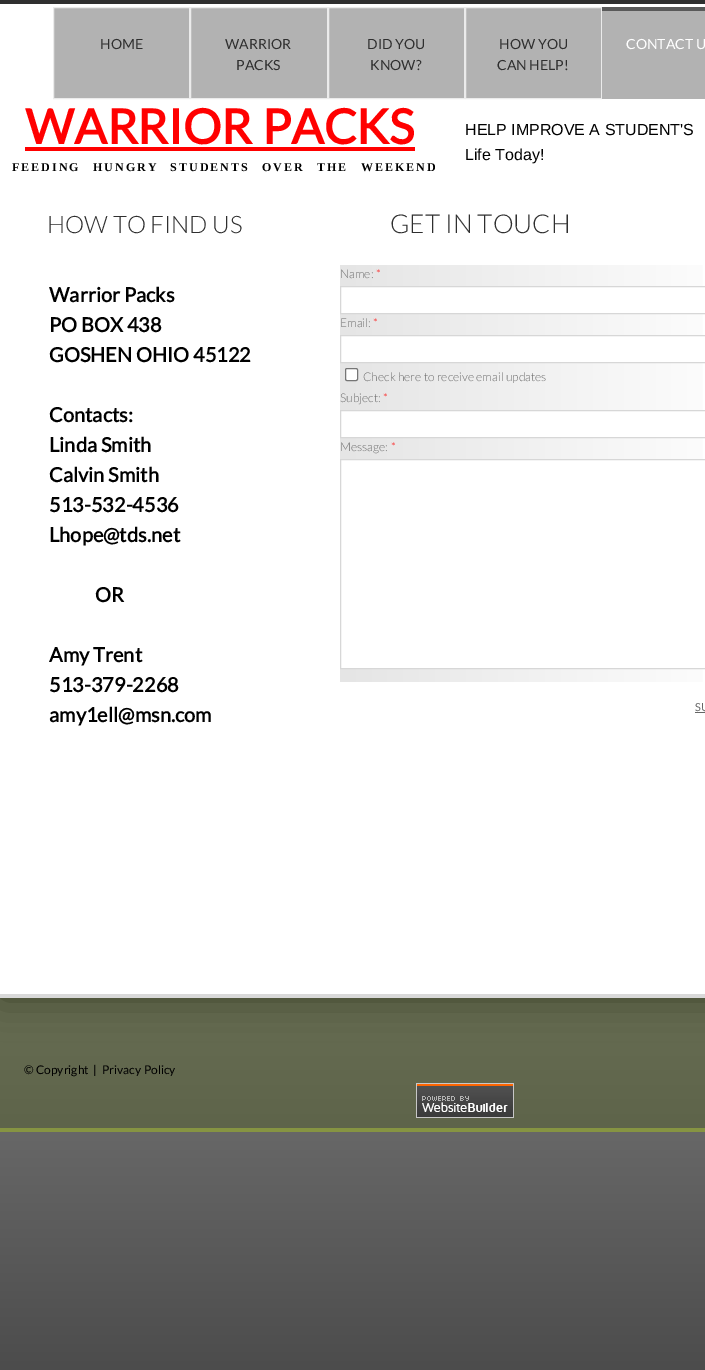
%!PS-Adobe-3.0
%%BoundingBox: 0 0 705 1370
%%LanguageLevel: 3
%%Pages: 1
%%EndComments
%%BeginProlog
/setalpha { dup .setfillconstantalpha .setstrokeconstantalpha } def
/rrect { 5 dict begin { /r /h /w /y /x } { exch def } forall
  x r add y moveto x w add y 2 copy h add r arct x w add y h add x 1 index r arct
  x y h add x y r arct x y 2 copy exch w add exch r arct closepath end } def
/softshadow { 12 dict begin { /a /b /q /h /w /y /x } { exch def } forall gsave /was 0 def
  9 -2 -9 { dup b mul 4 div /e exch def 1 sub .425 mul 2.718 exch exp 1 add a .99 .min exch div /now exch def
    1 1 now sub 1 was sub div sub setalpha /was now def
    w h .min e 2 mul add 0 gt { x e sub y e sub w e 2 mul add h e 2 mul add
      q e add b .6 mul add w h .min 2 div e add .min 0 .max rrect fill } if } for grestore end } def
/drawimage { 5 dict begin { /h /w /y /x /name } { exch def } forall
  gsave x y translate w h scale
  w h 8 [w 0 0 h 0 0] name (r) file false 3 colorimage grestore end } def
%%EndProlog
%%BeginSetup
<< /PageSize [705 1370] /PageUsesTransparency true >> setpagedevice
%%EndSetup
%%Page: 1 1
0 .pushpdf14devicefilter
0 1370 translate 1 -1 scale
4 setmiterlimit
1 setgray
0 0 705 1370 rectfill
gsave newpath 0 998 moveto 705 998 lineto 705 1128 lineto 0 1128 lineto closepath clip newpath
<< /ShadingType 2 /ColorSpace /DeviceRGB /Coords [600 0 600 1370] /Extend [true true] /Function << /FunctionType 2 /Domain [0 1] /C0 [0.667 0.686 0.588] /C1 [0.306 0.329 0.227] /N 1 >> >> shfill grestore
0.129 0.149 0.047 setrgbcolor
0 0 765 998 0 20 0.6 softshadow
1 setgray
0 4 705 990 rectfill
0.184 setgray
0 0 705 4 rectfill
0.851 setgray
0 994 705 4 rectfill
0.698 setgray
newpath 53.5 7.5 moveto 189.5 7.5 lineto 189.5 98.5 lineto 53.5 98.5 lineto closepath gsave fill grestore
0.922 setgray
stroke
0.698 setgray
newpath 190.5 7.5 moveto 327.5 7.5 lineto 327.5 98.5 lineto 190.5 98.5 lineto closepath gsave fill grestore
0.922 setgray
stroke
0.698 setgray
newpath 328.5 7.5 moveto 464.5 7.5 lineto 464.5 98.5 lineto 328.5 98.5 lineto closepath gsave fill grestore
0.922 setgray
stroke
0.698 setgray
newpath 465.5 7.5 moveto 601.5 7.5 lineto 601.5 98.5 lineto 465.5 98.5 lineto closepath gsave fill grestore
0.922 setgray
stroke
0.698 setgray
602 11 103 88 rectfill
0.349 setgray
newpath 602 7 moveto 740 7 lineto 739 11 lineto 602 11 lineto closepath fill
1 0 0 setrgbcolor
25 147 390 4 rectfill
gsave newpath 340 265 moveto 703 265 lineto 703 682 lineto 340 682 lineto closepath clip newpath
<< /ShadingType 2 /ColorSpace /DeviceRGB /Coords [340 474 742 474] /Extend [true true] /Function << /FunctionType 2 /Domain [0 1] /C0 [0.898 0.898 0.898] /C1 [1 1 1] /N 1 >> >> shfill grestore
1 setgray
341 287 362 26 rectfill
0.843 setgray
340.5 286.5 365 27 rectstroke
1 setgray
341 336 362 26 rectfill
0.843 setgray
340.5 335.5 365 27 rectstroke
1 setgray
345.5 368.5 12 12 1.5 rrect gsave fill grestore
0.463 setgray
stroke
1 setgray
341 411 362 26 rectfill
0.843 setgray
340.5 410.5 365 27 rectstroke
1 setgray
341 460 362 208 rectfill
0.843 setgray
340.5 459.5 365 209 rectstroke
0.4 setgray
695 712 10 1 rectfill
gsave newpath 0 1132 moveto 705 1132 lineto 705 1370 lineto 0 1370 lineto closepath clip newpath
<< /ShadingType 2 /ColorSpace /DeviceRGB /Coords [600 0 600 1370] /Extend [true true] /Function << /FunctionType 2 /Domain [0 1] /C0 [0.898 0.898 0.898] /C1 [0.298 0.298 0.298] /N 1 >> >> shfill grestore
0.525 0.58 0.259 setrgbcolor
0 1128 705 4 rectfill
(images/1.raw) 416 1083 98 35 drawimage
/Lato-Regular [14 0 0 -14 0 0] selectfont
0.184 setgray
100 49 moveto (HOME) show
225 49 moveto (WARRIOR) show
236 70 moveto (PACKS) show
367 49 moveto (DID YOU) show
370 70 moveto (KNOW?) show
499 49 moveto (HOW YOU) show
497 70 moveto (CAN HELP!) show
1 setgray
626 49 moveto (CONTACT U) show
/Lato-Bold [48 0 0 -48 0 0] selectfont
1 0 0 setrgbcolor
25 144 moveto (WARRIOR PACKS) show
/LiberationSans-Regular [16 0 0 -16 0 0] selectfont
0 setgray
465 135 moveto (HELP IMPROVE A STUDENT'S) show
465 160 moveto (Life Today!) show
/LiberationSerif-Bold [12 0 0 -12 0 0] selectfont
12 171 moveto 7.25 0 32 2 0 (FEEDING HUNGRY STUDENTS OVER THE WEEKEND) awidthshow
/Lato-Light [24 0 0 -24 0 0] selectfont
0.184 setgray
47 233 moveto (HOW TO FIND US) show
/Lato-Light [26 0 0 -26 0 0] selectfont
390 233 moveto (GET IN TOUCH) show
/Lato-Bold [20 0 0 -20 0 0] selectfont
0 setgray
49 302 moveto (Warrior Packs) show
49 332 moveto (PO BOX 438) show
49 362 moveto (GOSHEN OHIO 45122) show
49 422 moveto (Contacts:) show
49 452 moveto (Linda Smith) show
49 482 moveto (Calvin Smith) show
49 512 moveto (513-532-4536) show
49 542 moveto (Lhope@tds.net) show
95 602 moveto (OR) show
49 662 moveto (Amy Trent) show
49 692 moveto (513-379-2268) show
49 722 moveto (amy1ell@msn.com) show
/Lato-Light [12 0 0 -12 0 0] selectfont
0.435 setgray
340 278 moveto (Name:) show
1 0 0 setrgbcolor
376 278 moveto (*) show
0.435 setgray
340 327 moveto (Email:) show
1 0 0 setrgbcolor
373 327 moveto (*) show
0.435 setgray
363 381 moveto (Check here to receive email updates) show
340 402 moveto (Subject:) show
1 0 0 setrgbcolor
383 402 moveto (*) show
0.435 setgray
340 451 moveto (Message:) show
1 0 0 setrgbcolor
391 451 moveto (*) show
/Lato-Regular [11 0 0 -11 0 0] selectfont
0.4 setgray
695 711 moveto (SU) show
/Lato-Regular [12 0 0 -12 0 0] selectfont
0 setgray
24 1074 moveto (© Copyright  |) show
102 1074 moveto (Privacy Policy) show
.poppdf14devicefilter showpage
%%EOF
